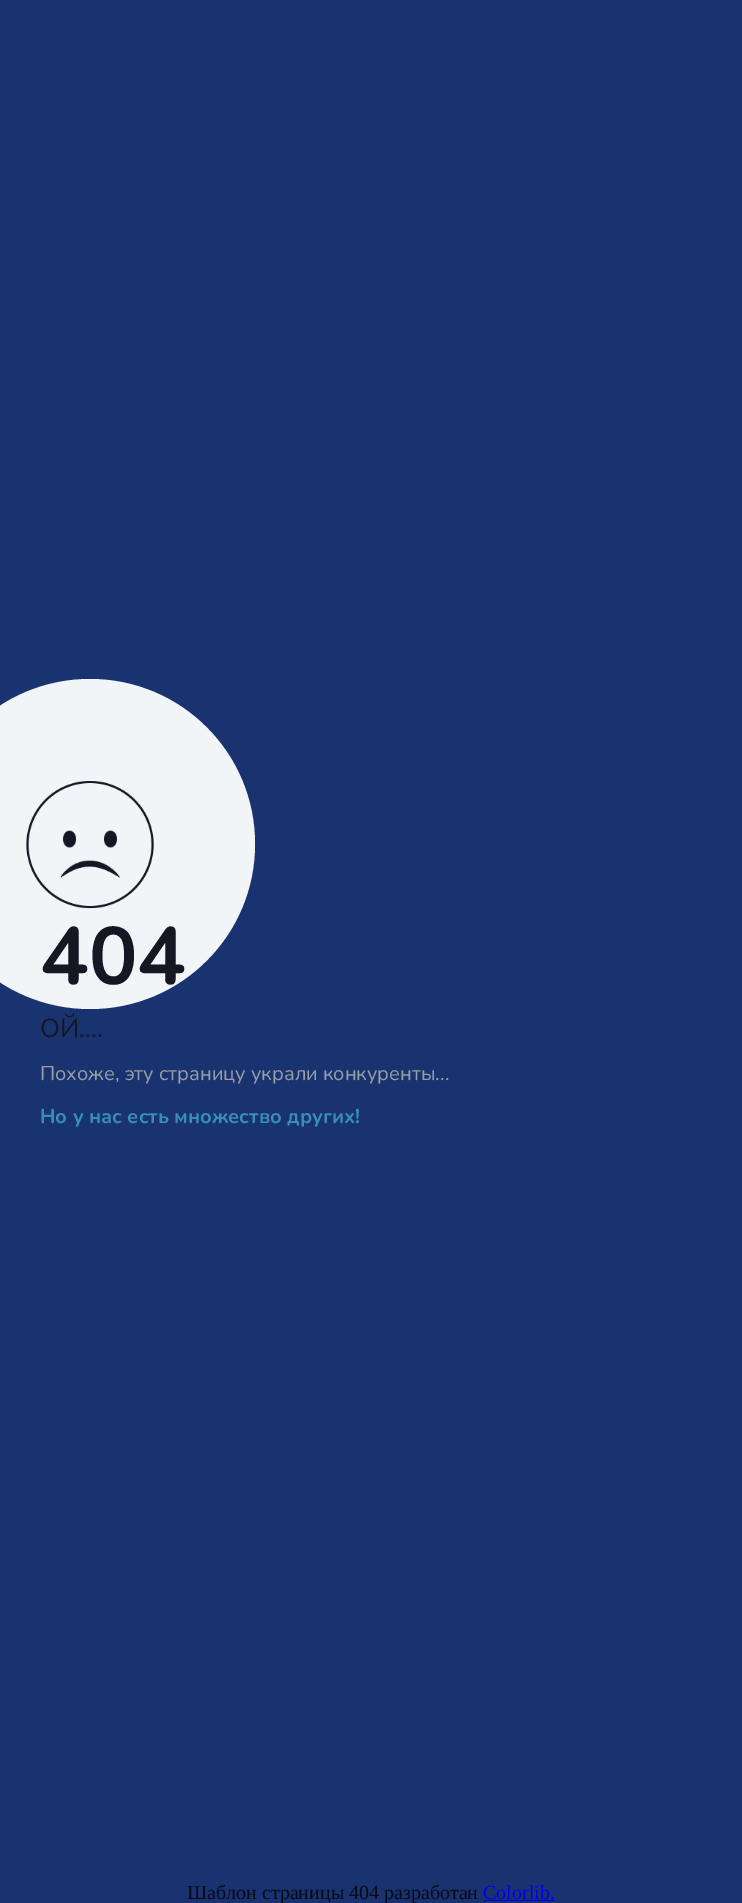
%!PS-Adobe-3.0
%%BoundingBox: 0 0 742 1903
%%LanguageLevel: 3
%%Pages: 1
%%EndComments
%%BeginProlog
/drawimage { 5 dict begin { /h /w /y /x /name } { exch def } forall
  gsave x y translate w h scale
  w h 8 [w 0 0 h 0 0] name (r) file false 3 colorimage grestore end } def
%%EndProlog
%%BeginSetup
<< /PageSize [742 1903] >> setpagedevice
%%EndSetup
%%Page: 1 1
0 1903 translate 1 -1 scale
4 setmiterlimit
0.098 0.196 0.439 setrgbcolor
0 0 742 1903 rectfill
0.949 0.961 0.973 setrgbcolor
newpath 90 844 165 0 360 arc closepath fill
(images/1.raw) 26 781 128 128 drawimage
0 0 0.933 setrgbcolor
484 1900 71 1 rectfill
/Nunito-Bold [81 0 0 -81 0 0] selectfont
0.082 0.09 0.137 setrgbcolor
40 984 moveto (404) show
/Nunito-Regular [26 0 0 -26 0 0] selectfont
40 1037 moveto (ОЙ....) show
/Nunito-Regular [20 0 0 -20 0 0] selectfont
0.6 0.624 0.647 setrgbcolor
40 1080 moveto (Похоже, эту страницу украли конкуренты...) show
/Nunito-Bold [20 0 0 -20 0 0] selectfont
0.22 0.553 0.737 setrgbcolor
40 1123 moveto (Но у нас есть множество других!) show
/LiberationSerif-Regular [20 0 0 -20 0 0] selectfont
0.02 0.039 0.086 setrgbcolor
187 1899 moveto (Шаблон страницы 404 разработан) show
0 0 0.933 setrgbcolor
483 1899 moveto (Colorlib.) show
showpage
%%EOF
